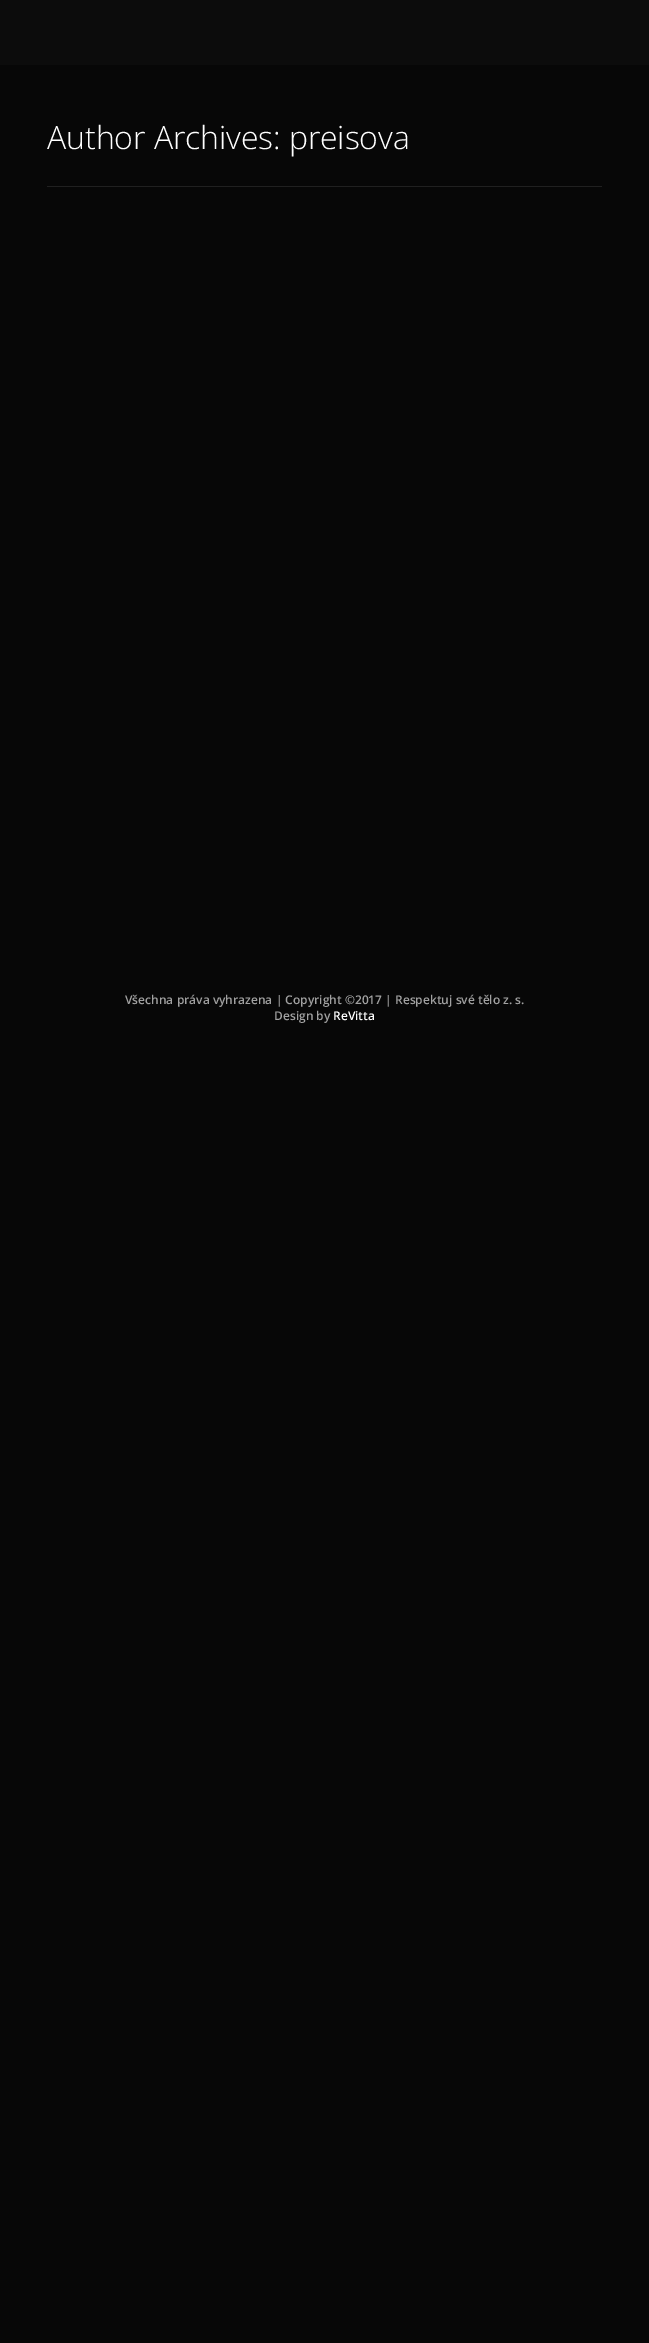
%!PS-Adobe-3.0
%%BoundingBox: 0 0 649 2343
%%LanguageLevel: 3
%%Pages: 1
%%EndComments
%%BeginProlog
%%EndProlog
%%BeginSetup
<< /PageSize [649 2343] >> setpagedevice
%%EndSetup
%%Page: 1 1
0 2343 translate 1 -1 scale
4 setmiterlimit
0.027 setgray
0 0 649 2343 rectfill
0.047 setgray
0 0 649 65 rectfill
0.125 setgray
47 186 555 1 rectfill
/OpenSans-Light [32 0 0 -32 0 0] selectfont
1 setgray
47 149 moveto -0.1 0 (Author Archives: preisova) ashow
/OpenSans-SemiBold [12 0 0 -12 0 0] selectfont
0.631 setgray
125 1004 moveto (Všechna práva vyhrazena | Copyright ©2017 | Respektuj své tělo z. s.) show
274 1020 moveto (Design by) show
1 setgray
333 1020 moveto (ReVitta) show
showpage
%%EOF
